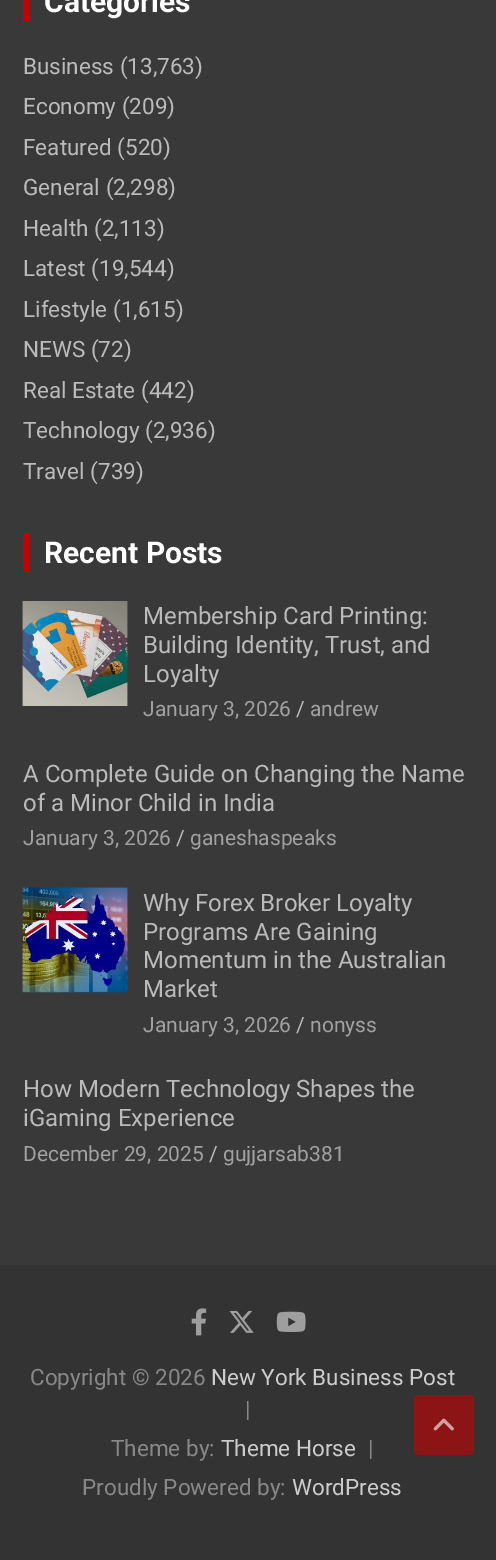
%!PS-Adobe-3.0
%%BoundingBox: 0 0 496 1560
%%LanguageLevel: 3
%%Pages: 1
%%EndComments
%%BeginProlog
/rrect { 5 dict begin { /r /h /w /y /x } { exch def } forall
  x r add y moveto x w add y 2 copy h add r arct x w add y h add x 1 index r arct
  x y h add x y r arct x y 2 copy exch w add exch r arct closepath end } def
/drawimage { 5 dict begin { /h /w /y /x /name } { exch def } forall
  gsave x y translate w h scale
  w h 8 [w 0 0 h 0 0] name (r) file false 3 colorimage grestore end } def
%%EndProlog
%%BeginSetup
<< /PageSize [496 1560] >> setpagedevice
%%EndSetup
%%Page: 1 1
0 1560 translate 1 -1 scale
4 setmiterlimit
0.224 setgray
0 0 496 1560 rectfill
0.784 0 0 setrgbcolor
23 0 6 21 rectfill
23 533 6 39 rectfill
(images/1.raw) 22 601 106 105 drawimage
(images/2.raw) 22 887 106 106 drawimage
0.2 setgray
0 1265 496 295 rectfill
(images/3.raw) 191 1308 16 28 drawimage
(images/4.raw) 229 1310 25 23 drawimage
(images/5.raw) 276 1311 30 21 drawimage
0.549 0.078 0.078 setrgbcolor
414 1395 60 60 5 rrect fill
(images/6.raw) 433 1418 21 13 drawimage
/Roboto-Bold [30 0 0 -30 0 0] selectfont
1 setgray
44 12 moveto (Categories) show
/Roboto-Regular [22.5 0 0 -22.5 0 0] selectfont
0.733 setgray
23 74 moveto (Business \(13,763\)) show
23 114 moveto (Economy \(209\)) show
23 155 moveto (Featured \(520\)) show
23 195 moveto (General \(2,298\)) show
23 236 moveto (Health \(2,113\)) show
23 276 moveto (Latest \(19,544\)) show
23 317 moveto (Lifestyle \(1,615\)) show
23 357 moveto (NEWS \(72\)) show
23 398 moveto (Real Estate \(442\)) show
23 438 moveto (Technology \(2,936\)) show
23 479 moveto (Travel \(739\)) show
/Roboto-Bold [30 0 0 -30 0 0] selectfont
1 setgray
44 563 moveto (Recent Posts) show
/Roboto-Regular [24 0 0 -24 0 0] selectfont
0.733 setgray
143 624 moveto (Membership Card Printing:) show
143 653 moveto (Building Identity, Trust, and) show
143 682 moveto (Loyalty) show
/Roboto-Regular [21 0 0 -21 0 0] selectfont
0.631 setgray
143 716 moveto (January 3, 2026) show
0.733 setgray
296 716 moveto (/) show
0.631 setgray
310 716 moveto (andrew) show
/Roboto-Regular [24 0 0 -24 0 0] selectfont
0.733 setgray
23 782 moveto (A Complete Guide on Changing the Name) show
23 811 moveto (of a Minor Child in India) show
/Roboto-Regular [21 0 0 -21 0 0] selectfont
0.631 setgray
23 845 moveto (January 3, 2026) show
0.733 setgray
176 845 moveto (/) show
0.631 setgray
190 845 moveto (ganeshaspeaks) show
/Roboto-Regular [24 0 0 -24 0 0] selectfont
0.733 setgray
143 911 moveto (Why Forex Broker Loyalty) show
143 940 moveto (Programs Are Gaining) show
143 968 moveto (Momentum in the Australian) show
143 997 moveto (Market) show
/Roboto-Regular [21 0 0 -21 0 0] selectfont
0.631 setgray
143 1032 moveto (January 3, 2026) show
0.733 setgray
296 1032 moveto (/) show
0.631 setgray
310 1032 moveto (nonyss) show
/Roboto-Regular [24 0 0 -24 0 0] selectfont
0.733 setgray
23 1097 moveto (How Modern Technology Shapes the) show
23 1126 moveto (iGaming Experience) show
/Roboto-Regular [21 0 0 -21 0 0] selectfont
0.631 setgray
23 1161 moveto (December 29, 2025) show
0.733 setgray
209 1161 moveto (/) show
0.631 setgray
223 1161 moveto (gujjarsab381) show
/Roboto-Regular [22.5 0 0 -22.5 0 0] selectfont
0.533 setgray
30 1385 moveto (Copyright © 2026) show
0.8 setgray
211 1385 moveto (New York Business Post) show
0.533 setgray
245 1417 moveto (|) show
111 1456 moveto (Theme by:) show
0.8 setgray
221 1456 moveto (Theme Horse) show
0.533 setgray
368 1456 moveto (|) show
82 1495 moveto (Proudly Powered by:) show
0.8 setgray
292 1495 moveto (WordPress) show
showpage
%%EOF
